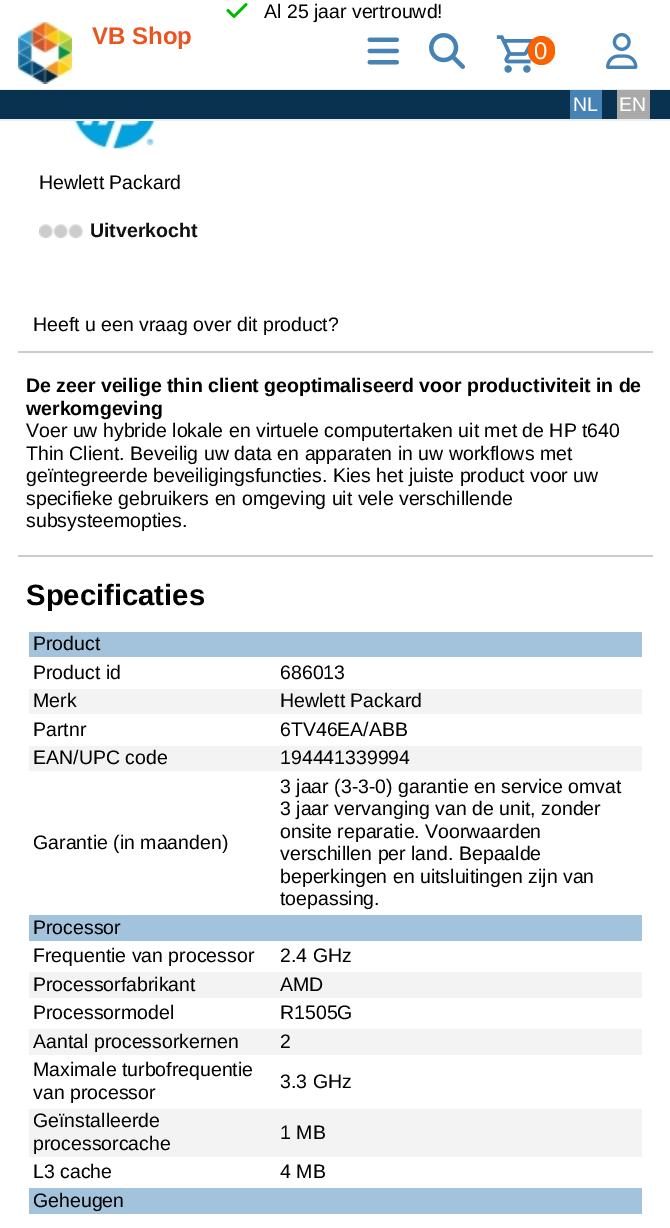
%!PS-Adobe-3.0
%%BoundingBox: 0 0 670 1228
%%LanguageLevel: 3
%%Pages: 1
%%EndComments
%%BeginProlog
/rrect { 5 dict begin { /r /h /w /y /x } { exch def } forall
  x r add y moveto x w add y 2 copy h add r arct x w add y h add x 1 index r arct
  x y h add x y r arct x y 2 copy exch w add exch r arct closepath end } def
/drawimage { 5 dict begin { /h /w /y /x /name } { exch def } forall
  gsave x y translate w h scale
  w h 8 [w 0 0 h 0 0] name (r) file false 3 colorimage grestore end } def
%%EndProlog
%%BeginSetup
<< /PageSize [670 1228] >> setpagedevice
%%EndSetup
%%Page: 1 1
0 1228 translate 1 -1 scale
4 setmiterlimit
1 setgray
0 0 670 1228 rectfill
0.933 0.929 0.929 setrgbcolor
0 119 670 2 rectfill
(images/1.raw) 226 3 22 15 drawimage
0 89 670 1 rectfill
(images/2.raw) 18 22 54 62 drawimage
(images/3.raw) 367 37 32 28 drawimage
(images/4.raw) 429 33 36 36 drawimage
(images/5.raw) 496 35 37 38 drawimage
0.973 0.384 0 setrgbcolor
528 36 27 29 13.5 rrect fill
(images/6.raw) 606 33 32 36 drawimage
0.031 0.196 0.314 setrgbcolor
0 90 670 29 rectfill
0.275 0.51 0.706 setrgbcolor
570 90 32 29 rectfill
0.663 setgray
617 90 33 29 rectfill
(images/7.raw) 70 121 89 29 drawimage
(images/8.raw) 39 224 44 14 drawimage
0.8 setgray
18 351 635 2 rectfill
18 555 635 2 rectfill
0.639 0.761 0.859 setrgbcolor
29 632 613 25 rectfill
0.953 setgray
29 689 613 25 rectfill
29 746 613 25 rectfill
0.639 0.761 0.859 setrgbcolor
29 915 613 26 rectfill
0.953 setgray
29 972 613 26 rectfill
29 1029 613 26 rectfill
29 1109 613 48 rectfill
0.639 0.761 0.859 setrgbcolor
29 1188 613 26 rectfill
/LiberationSans-Regular [19.5 0 0 -19.5 0 0] selectfont
0 setgray
264 18 moveto (Al 25 jaar vertrouwd!) show
/LiberationSans-Bold [24 0 0 -24 0 0] selectfont
0.914 0.329 0.125 setrgbcolor
92 44 moveto (VB Shop) show
/LiberationSans-Regular [24 0 0 -24 0 0] selectfont
1 setgray
534 59 moveto (0) show
/LiberationSans-Regular [19.5 0 0 -19.5 0 0] selectfont
573 111 moveto (NL) show
619 111 moveto (EN) show
0 setgray
39 189 moveto (Hewlett Packard) show
/LiberationSans-Bold [19.5 0 0 -19.5 0 0] selectfont
0.067 setgray
90 237 moveto (Uitverkocht) show
/LiberationSans-Regular [19.5 0 0 -19.5 0 0] selectfont
0 setgray
33 331 moveto (Heeft u een vraag over dit product?) show
/LiberationSans-Bold [19.5 0 0 -19.5 0 0] selectfont
26 392 moveto (De zeer veilige thin client geoptimaliseerd voor productiviteit in de) show
26 415 moveto (werkomgeving) show
/LiberationSans-Regular [19.5 0 0 -19.5 0 0] selectfont
26 437 moveto (Voer uw hybride lokale en virtuele computertaken uit met de HP t640) show
26 460 moveto (Thin Client. Beveilig uw data en apparaten in uw workflows met) show
26 482 moveto (geïntegreerde beveiligingsfuncties. Kies het juiste product voor uw) show
26 505 moveto (specifieke gebruikers en omgeving uit vele verschillende) show
26 527 moveto (subsysteemopties.) show
/LiberationSans-Bold [29.25 0 0 -29.25 0 0] selectfont
26 605 moveto (Specificaties) show
/LiberationSans-Regular [19.5 0 0 -19.5 0 0] selectfont
33 650 moveto (Product) show
33 679 moveto (Product id) show
280 679 moveto (686013) show
33 707 moveto (Merk) show
280 707 moveto (Hewlett Packard) show
33 736 moveto (Partnr) show
280 736 moveto (6TV46EA/ABB) show
33 764 moveto (EAN/UPC code) show
280 764 moveto (194441339994) show
33 849 moveto (Garantie \(in maanden\)) show
280 793 moveto (3 jaar \(3-3-0\) garantie en service omvat) show
280 815 moveto (3 jaar vervanging van de unit, zonder) show
280 838 moveto (onsite reparatie. Voorwaarden) show
280 860 moveto (verschillen per land. Bepaalde) show
280 883 moveto (beperkingen en uitsluitingen zijn van) show
280 905 moveto (toepassing.) show
33 934 moveto (Processor) show
33 962 moveto (Frequentie van processor) show
280 962 moveto (2.4 GHz) show
33 991 moveto (Processorfabrikant) show
280 991 moveto (AMD) show
33 1019 moveto (Processormodel) show
280 1019 moveto (R1505G) show
33 1048 moveto (Aantal processorkernen) show
280 1048 moveto (2) show
33 1076 moveto (Maximale turbofrequentie) show
33 1099 moveto (van processor) show
280 1088 moveto (3.3 GHz) show
33 1127 moveto (Geïnstalleerde) show
33 1150 moveto (processorcache) show
280 1139 moveto (1 MB) show
33 1178 moveto (L3 cache) show
280 1178 moveto (4 MB) show
33 1207 moveto (Geheugen) show
showpage
%%EOF
